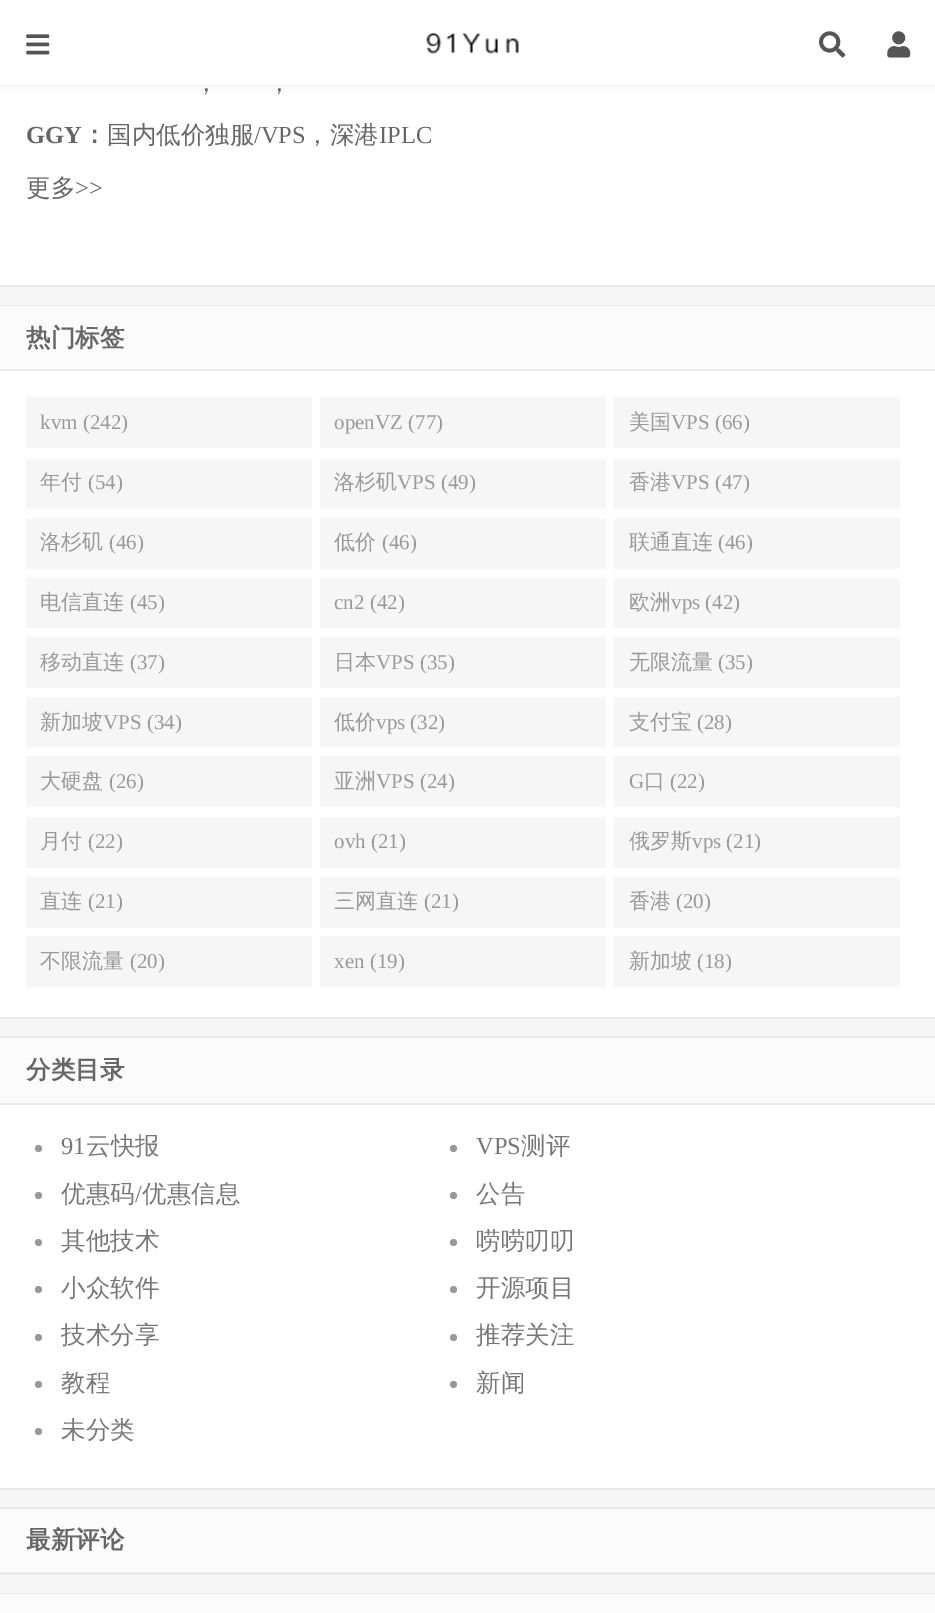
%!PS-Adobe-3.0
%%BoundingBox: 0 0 935 1613
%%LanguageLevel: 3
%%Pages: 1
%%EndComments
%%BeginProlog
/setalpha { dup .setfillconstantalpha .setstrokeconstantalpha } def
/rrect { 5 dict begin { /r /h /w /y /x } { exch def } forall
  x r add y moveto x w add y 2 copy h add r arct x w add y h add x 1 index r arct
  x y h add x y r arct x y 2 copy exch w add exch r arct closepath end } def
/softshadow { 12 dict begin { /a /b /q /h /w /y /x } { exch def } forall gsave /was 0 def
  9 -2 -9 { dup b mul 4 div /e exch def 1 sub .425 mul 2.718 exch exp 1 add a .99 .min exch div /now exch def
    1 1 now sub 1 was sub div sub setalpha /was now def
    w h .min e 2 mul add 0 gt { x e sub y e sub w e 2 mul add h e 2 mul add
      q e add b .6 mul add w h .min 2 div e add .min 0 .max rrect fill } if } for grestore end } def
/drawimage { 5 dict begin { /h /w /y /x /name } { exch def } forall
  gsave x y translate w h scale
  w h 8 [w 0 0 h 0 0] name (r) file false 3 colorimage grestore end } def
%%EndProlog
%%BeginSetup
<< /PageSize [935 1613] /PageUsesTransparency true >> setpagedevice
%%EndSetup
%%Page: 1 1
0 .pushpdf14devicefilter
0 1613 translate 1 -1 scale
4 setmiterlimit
0.965 setgray
0 0 935 1613 rectfill
1 setgray
0 84 935 201 rectfill
0 setgray
0 2 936 84 0 4.5 0.05 softshadow
1 setgray
0 0 935 84 rectfill
(images/1.raw) 26 34 24 21 drawimage
(images/2.raw) 426 32 93 23 drawimage
(images/3.raw) 819 31 27 27 drawimage
(images/4.raw) 887 31 24 27 drawimage
0.918 setgray
0 285 935 2 rectfill
1 setgray
0 371 935 646 rectfill
0.918 setgray
0 305 935 1 rectfill
0 1017 935 2 rectfill
0.984 setgray
0 306 935 63 rectfill
0.918 setgray
0 369 935 2 rectfill
0.965 setgray
26 397 286 51 rectfill
320 397 286 51 rectfill
614 397 286 51 rectfill
26 459 286 50 rectfill
320 459 286 50 rectfill
614 459 286 50 rectfill
26 518 286 51 rectfill
320 518 286 51 rectfill
614 518 286 51 rectfill
26 578 286 50 rectfill
320 578 286 50 rectfill
614 578 286 50 rectfill
26 637 286 51 rectfill
320 637 286 51 rectfill
614 637 286 51 rectfill
26 697 286 50 rectfill
320 697 286 50 rectfill
614 697 286 50 rectfill
26 756 286 51 rectfill
320 756 286 51 rectfill
614 756 286 51 rectfill
26 817 286 51 rectfill
320 817 286 51 rectfill
614 817 286 51 rectfill
26 877 286 51 rectfill
320 877 286 51 rectfill
614 877 286 51 rectfill
26 936 286 51 rectfill
320 936 286 51 rectfill
614 936 286 51 rectfill
1 setgray
0 1105 935 383 rectfill
0.918 setgray
0 1036 935 2 rectfill
0 1488 935 2 rectfill
0.984 setgray
0 1038 935 65 rectfill
0.918 setgray
0 1103 935 2 rectfill
0.6 setgray
newpath 38.5 1148.5 3.5 0 360 arc closepath fill
newpath 453.5 1148.5 3.5 0 360 arc closepath fill
newpath 38.5 1195.5 3.5 0 360 arc closepath fill
newpath 453.5 1195.5 3.5 0 360 arc closepath fill
newpath 38.5 1242.5 3.5 0 360 arc closepath fill
newpath 453.5 1242.5 3.5 0 360 arc closepath fill
newpath 38.5 1289.5 3.5 0 360 arc closepath fill
newpath 453.5 1289.5 3.5 0 360 arc closepath fill
newpath 38.5 1337.5 3.5 0 360 arc closepath fill
newpath 453.5 1337.5 3.5 0 360 arc closepath fill
newpath 38.5 1384.5 3.5 0 360 arc closepath fill
newpath 453.5 1384.5 3.5 0 360 arc closepath fill
newpath 38.5 1431.5 3.5 0 360 arc closepath fill
0.918 setgray
0 1507 935 2 rectfill
0 1572 935 3 rectfill
0.984 setgray
0 1509 935 63 rectfill
0.918 setgray
0 1593 935 1 rectfill
0.984 setgray
0 1594 935 19 rectfill
/WenQuanYiZenHei-Medium [24.5 0 0 -24.5 0 0] selectfont
0.4 setgray
194 91 moveto (，) show
267 91 moveto (，) show
/LiberationSerif-Bold [24.5 0 0 -24.5 0 0] selectfont
26 143 moveto (GGY) show
/WenQuanYiZenHei-Bold [24.5 0 0 -24.5 0 0] selectfont
82 143 moveto (：) show
/WenQuanYiZenHei-Medium [24.5 0 0 -24.5 0 0] selectfont
107 143 moveto (国内低价独服) show
/LiberationSerif-Regular [24.5 0 0 -24.5 0 0] selectfont
254 143 moveto (/VPS) show
/WenQuanYiZenHei-Medium [24.5 0 0 -24.5 0 0] selectfont
305 143 moveto (，深港) show
/LiberationSerif-Regular [24.5 0 0 -24.5 0 0] selectfont
379 143 moveto (IPLC) show
/WenQuanYiZenHei-Medium [24.5 0 0 -24.5 0 0] selectfont
26 196 moveto (更多) show
/LiberationSerif-Regular [24.5 0 0 -24.5 0 0] selectfont
75 196 moveto (>>) show
/WenQuanYiZenHei-Bold [24.5 0 0 -24.5 0 0] selectfont
26 346 moveto (热门标签) show
/LiberationSerif-Regular [21 0 0 -21 0 0] selectfont
0.6 setgray
40 429 moveto (kvm \(242\)) show
334 429 moveto (openVZ \(77\)) show
/WenQuanYiZenHei-Medium [21 0 0 -21 0 0] selectfont
629 429 moveto (美国) show
/LiberationSerif-Regular [21 0 0 -21 0 0] selectfont
671 429 moveto (VPS \(66\)) show
/WenQuanYiZenHei-Medium [21 0 0 -21 0 0] selectfont
40 489 moveto (年付) show
/LiberationSerif-Regular [21 0 0 -21 0 0] selectfont
88 489 moveto (\(54\)) show
/WenQuanYiZenHei-Medium [21 0 0 -21 0 0] selectfont
334 489 moveto (洛杉矶) show
/LiberationSerif-Regular [21 0 0 -21 0 0] selectfont
397 489 moveto (VPS \(49\)) show
/WenQuanYiZenHei-Medium [21 0 0 -21 0 0] selectfont
629 489 moveto (香港) show
/LiberationSerif-Regular [21 0 0 -21 0 0] selectfont
671 489 moveto (VPS \(47\)) show
/WenQuanYiZenHei-Medium [21 0 0 -21 0 0] selectfont
40 549 moveto (洛杉矶) show
/LiberationSerif-Regular [21 0 0 -21 0 0] selectfont
109 549 moveto (\(46\)) show
/WenQuanYiZenHei-Medium [21 0 0 -21 0 0] selectfont
334 549 moveto (低价) show
/LiberationSerif-Regular [21 0 0 -21 0 0] selectfont
382 549 moveto (\(46\)) show
/WenQuanYiZenHei-Medium [21 0 0 -21 0 0] selectfont
629 549 moveto (联通直连) show
/LiberationSerif-Regular [21 0 0 -21 0 0] selectfont
718 549 moveto (\(46\)) show
/WenQuanYiZenHei-Medium [21 0 0 -21 0 0] selectfont
40 609 moveto (电信直连) show
/LiberationSerif-Regular [21 0 0 -21 0 0] selectfont
130 609 moveto (\(45\)) show
334 609 moveto (cn2 \(42\)) show
/WenQuanYiZenHei-Medium [21 0 0 -21 0 0] selectfont
629 609 moveto (欧洲) show
/LiberationSerif-Regular [21 0 0 -21 0 0] selectfont
671 609 moveto (vps \(42\)) show
/WenQuanYiZenHei-Medium [21 0 0 -21 0 0] selectfont
40 669 moveto (移动直连) show
/LiberationSerif-Regular [21 0 0 -21 0 0] selectfont
130 669 moveto (\(37\)) show
/WenQuanYiZenHei-Medium [21 0 0 -21 0 0] selectfont
334 669 moveto (日本) show
/LiberationSerif-Regular [21 0 0 -21 0 0] selectfont
376 669 moveto (VPS \(35\)) show
/WenQuanYiZenHei-Medium [21 0 0 -21 0 0] selectfont
629 669 moveto (无限流量) show
/LiberationSerif-Regular [21 0 0 -21 0 0] selectfont
718 669 moveto (\(35\)) show
/WenQuanYiZenHei-Medium [21 0 0 -21 0 0] selectfont
40 729 moveto (新加坡) show
/LiberationSerif-Regular [21 0 0 -21 0 0] selectfont
103 729 moveto (VPS \(34\)) show
/WenQuanYiZenHei-Medium [21 0 0 -21 0 0] selectfont
334 729 moveto (低价) show
/LiberationSerif-Regular [21 0 0 -21 0 0] selectfont
376 729 moveto (vps \(32\)) show
/WenQuanYiZenHei-Medium [21 0 0 -21 0 0] selectfont
629 729 moveto (支付宝) show
/LiberationSerif-Regular [21 0 0 -21 0 0] selectfont
697 729 moveto (\(28\)) show
/WenQuanYiZenHei-Medium [21 0 0 -21 0 0] selectfont
40 788 moveto (大硬盘) show
/LiberationSerif-Regular [21 0 0 -21 0 0] selectfont
109 788 moveto (\(26\)) show
/WenQuanYiZenHei-Medium [21 0 0 -21 0 0] selectfont
334 788 moveto (亚洲) show
/LiberationSerif-Regular [21 0 0 -21 0 0] selectfont
376 788 moveto (VPS \(24\)) show
629 788 moveto (G) show
/WenQuanYiZenHei-Medium [21 0 0 -21 0 0] selectfont
644 788 moveto (口) show
/LiberationSerif-Regular [21 0 0 -21 0 0] selectfont
670 788 moveto (\(22\)) show
/WenQuanYiZenHei-Medium [21 0 0 -21 0 0] selectfont
40 848 moveto (月付) show
/LiberationSerif-Regular [21 0 0 -21 0 0] selectfont
88 848 moveto (\(22\)) show
334 848 moveto (ovh \(21\)) show
/WenQuanYiZenHei-Medium [21 0 0 -21 0 0] selectfont
629 848 moveto (俄罗斯) show
/LiberationSerif-Regular [21 0 0 -21 0 0] selectfont
692 848 moveto (vps \(21\)) show
/WenQuanYiZenHei-Medium [21 0 0 -21 0 0] selectfont
40 908 moveto (直连) show
/LiberationSerif-Regular [21 0 0 -21 0 0] selectfont
88 908 moveto (\(21\)) show
/WenQuanYiZenHei-Medium [21 0 0 -21 0 0] selectfont
334 908 moveto (三网直连) show
/LiberationSerif-Regular [21 0 0 -21 0 0] selectfont
424 908 moveto (\(21\)) show
/WenQuanYiZenHei-Medium [21 0 0 -21 0 0] selectfont
629 908 moveto (香港) show
/LiberationSerif-Regular [21 0 0 -21 0 0] selectfont
676 908 moveto (\(20\)) show
/WenQuanYiZenHei-Medium [21 0 0 -21 0 0] selectfont
40 968 moveto (不限流量) show
/LiberationSerif-Regular [21 0 0 -21 0 0] selectfont
130 968 moveto (\(20\)) show
334 968 moveto (xen \(19\)) show
/WenQuanYiZenHei-Medium [21 0 0 -21 0 0] selectfont
629 968 moveto (新加坡) show
/LiberationSerif-Regular [21 0 0 -21 0 0] selectfont
697 968 moveto (\(18\)) show
/WenQuanYiZenHei-Bold [24.5 0 0 -24.5 0 0] selectfont
0.4 setgray
26 1078 moveto (分类目录) show
/LiberationSerif-Regular [24.5 0 0 -24.5 0 0] selectfont
0.467 setgray
61 1154 moveto (91) show
/WenQuanYiZenHei-Medium [24.5 0 0 -24.5 0 0] selectfont
86 1154 moveto (云快报) show
/LiberationSerif-Regular [24.5 0 0 -24.5 0 0] selectfont
476 1154 moveto (VPS) show
/WenQuanYiZenHei-Medium [24.5 0 0 -24.5 0 0] selectfont
521 1154 moveto (测评) show
61 1202 moveto (优惠码) show
/LiberationSerif-Regular [24.5 0 0 -24.5 0 0] selectfont
135 1202 moveto (/) show
/WenQuanYiZenHei-Medium [24.5 0 0 -24.5 0 0] selectfont
142 1202 moveto (优惠信息) show
476 1202 moveto (公告) show
61 1249 moveto (其他技术) show
476 1249 moveto (唠唠叨叨) show
61 1296 moveto (小众软件) show
476 1296 moveto (开源项目) show
61 1343 moveto (技术分享) show
476 1343 moveto (推荐关注) show
61 1391 moveto (教程) show
476 1391 moveto (新闻) show
61 1438 moveto (未分类) show
/WenQuanYiZenHei-Bold [24.5 0 0 -24.5 0 0] selectfont
0.4 setgray
26 1548 moveto (最新评论) show
.poppdf14devicefilter showpage
%%EOF
